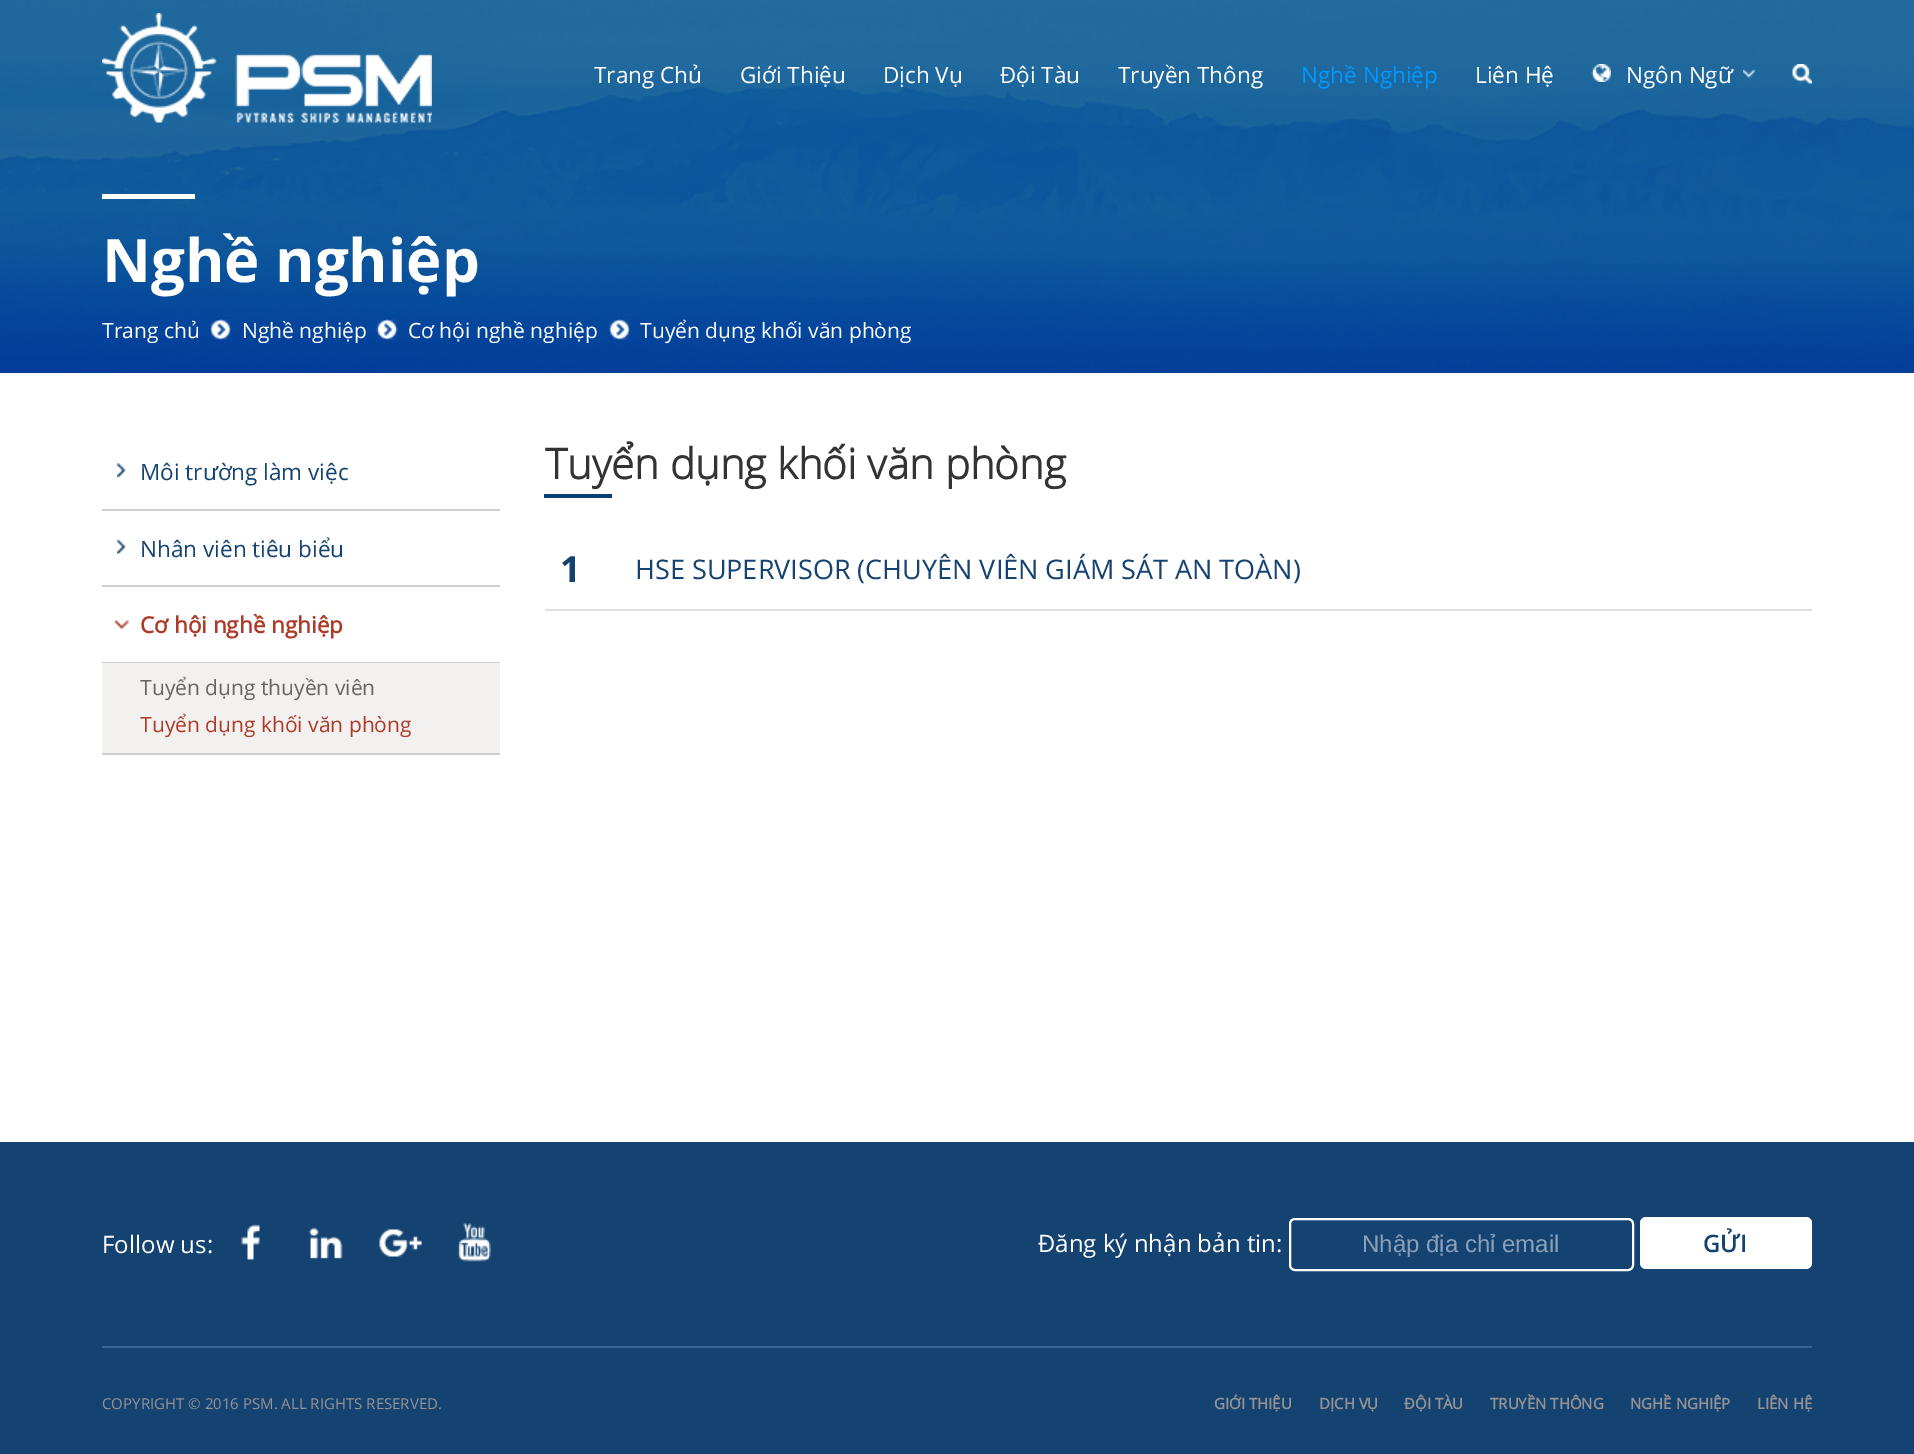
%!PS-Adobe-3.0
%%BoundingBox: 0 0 1914 1454
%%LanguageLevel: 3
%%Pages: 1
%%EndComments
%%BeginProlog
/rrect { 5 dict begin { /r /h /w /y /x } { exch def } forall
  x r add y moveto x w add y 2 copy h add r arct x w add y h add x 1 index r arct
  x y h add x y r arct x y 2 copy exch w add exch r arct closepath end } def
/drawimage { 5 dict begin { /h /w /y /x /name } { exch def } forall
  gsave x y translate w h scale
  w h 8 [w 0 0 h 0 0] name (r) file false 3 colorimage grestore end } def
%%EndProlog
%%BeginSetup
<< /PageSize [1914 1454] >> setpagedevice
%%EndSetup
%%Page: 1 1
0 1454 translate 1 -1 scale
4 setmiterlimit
1 setgray
0 0 1914 1454 rectfill
(images/5.raw) 0 0 1914 373 drawimage
(images/1.raw) 102 13 330 110 drawimage
(images/2.raw) 1591 64 20 18 drawimage
(images/3.raw) 1743 69 12 9 drawimage
(images/4.raw) 1792 64 20 20 drawimage
102 194 93 5 rectfill
(images/6.raw) 210 319 21 21 drawimage
(images/7.raw) 376 319 22 21 drawimage
(images/8.raw) 609 319 21 21 drawimage
(images/9.raw) 117 463 9 15 drawimage
0.812 setgray
102 509 398 2 rectfill
(images/10.raw) 117 539 9 16 drawimage
102 585 398 2 rectfill
(images/11.raw) 114 620 15 10 drawimage
102 662 398 1 rectfill
0.949 0.945 0.937 setrgbcolor
102 663 398 90 rectfill
0.812 setgray
102 753 398 2 rectfill
0.047 0.251 0.447 setrgbcolor
544 494 68 4 rectfill
0.875 setgray
545 609 1267 2 rectfill
0.078 0.259 0.443 setrgbcolor
0 1142 1914 312 rectfill
(images/12.raw) 241 1224 19 36 drawimage
(images/13.raw) 308 1227 35 32 drawimage
(images/14.raw) 379 1229 43 28 drawimage
(images/15.raw) 458 1223 33 39 drawimage
1 setgray
2 setlinewidth
1290 1219 343 51 5 rrect stroke
1640 1217 172 52 6 rrect fill
0.208 0.396 0.588 setrgbcolor
102 1346 1710 2 rectfill
/OpenSans-Regular [22.5 0 0 -22.5 0 0] selectfont
1 setgray
594 83 moveto (Trang Chủ) show
740 83 moveto (Giới Thiệu) show
883 83 moveto (Dịch Vụ) show
1000 83 moveto (Đội Tàu) show
1118 83 moveto (Truyền Thông) show
0.004 0.596 1 setrgbcolor
1301 83 moveto (Nghề Nghiệp) show
1 setgray
1475 83 moveto (Liên Hệ) show
1626 83 moveto (Ngôn Ngữ) show
/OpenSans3-Bold [60 0 0 -60 0 0] selectfont
102 282 moveto (Nghề nghiệp) show
/OpenSans-Regular [21 0 0 -21 0 0] selectfont
102 338 moveto (Trang chủ) show
242 338 moveto (Nghề nghiệp) show
408 338 moveto (Cơ hội nghề nghiệp) show
640 338 moveto (Tuyển dụng khối văn phòng) show
/OpenSans-Regular [22.5 0 0 -22.5 0 0] selectfont
0.078 0.259 0.443 setrgbcolor
140 480 moveto (Môi trường làm việc) show
140 557 moveto (Nhân viên tiêu biểu) show
/OpenSans-Bold [22.5 0 0 -22.5 0 0] selectfont
0.682 0.231 0.157 setrgbcolor
140 633 moveto (Cơ hội nghề nghiệp) show
/OpenSans-Regular [21 0 0 -21 0 0] selectfont
0.396 setgray
140 695 moveto (Tuyển dụng thuyền viên) show
0.682 0.231 0.157 setrgbcolor
140 732 moveto (Tuyển dụng khối văn phòng) show
/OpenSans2-Bold [42 0 0 -42 0 0] selectfont
0.2 setgray
545 479 moveto (Tuyển dụng khối văn phòng) show
/OpenSans3-Bold [36 0 0 -36 0 0] selectfont
0.078 0.259 0.443 setrgbcolor
560 582 moveto (1) show
/OpenSans-Regular [27 0 0 -27 0 0] selectfont
635 579 moveto (HSE SUPERVISOR \(CHUYÊN VIÊN GIÁM SÁT AN TOÀN\)) show
/OpenSans-Regular [24 0 0 -24 0 0] selectfont
1 setgray
102 1253 moveto (Follow us:) show
1038 1252 moveto (Đăng ký nhận bản tin:) show
/LiberationSans-Regular [24 0 0 -24 0 0] selectfont
0.545 0.631 0.725 setrgbcolor
1362 1252 moveto (Nhập địa chỉ email) show
/OpenSans-SemiBold [24 0 0 -24 0 0] selectfont
0.078 0.259 0.443 setrgbcolor
1703 1252 moveto (GỬI) show
/OpenSans-Regular [15 0 0 -15 0 0] selectfont
0.58 setgray
102 1409 moveto (COPYRIGHT © 2016 PSM. ALL RIGHTS RESERVED.) show
/OpenSans-Bold [15 0 0 -15 0 0] selectfont
1214 1409 moveto (GIỚI THIỆU) show
1319 1409 moveto (DỊCH VỤ) show
1404 1409 moveto (ĐỘI TÀU) show
1490 1409 moveto (TRUYỀN THÔNG) show
1630 1409 moveto (NGHỀ NGHIỆP) show
1757 1409 moveto (LIÊN HỆ) show
showpage
%%EOF
